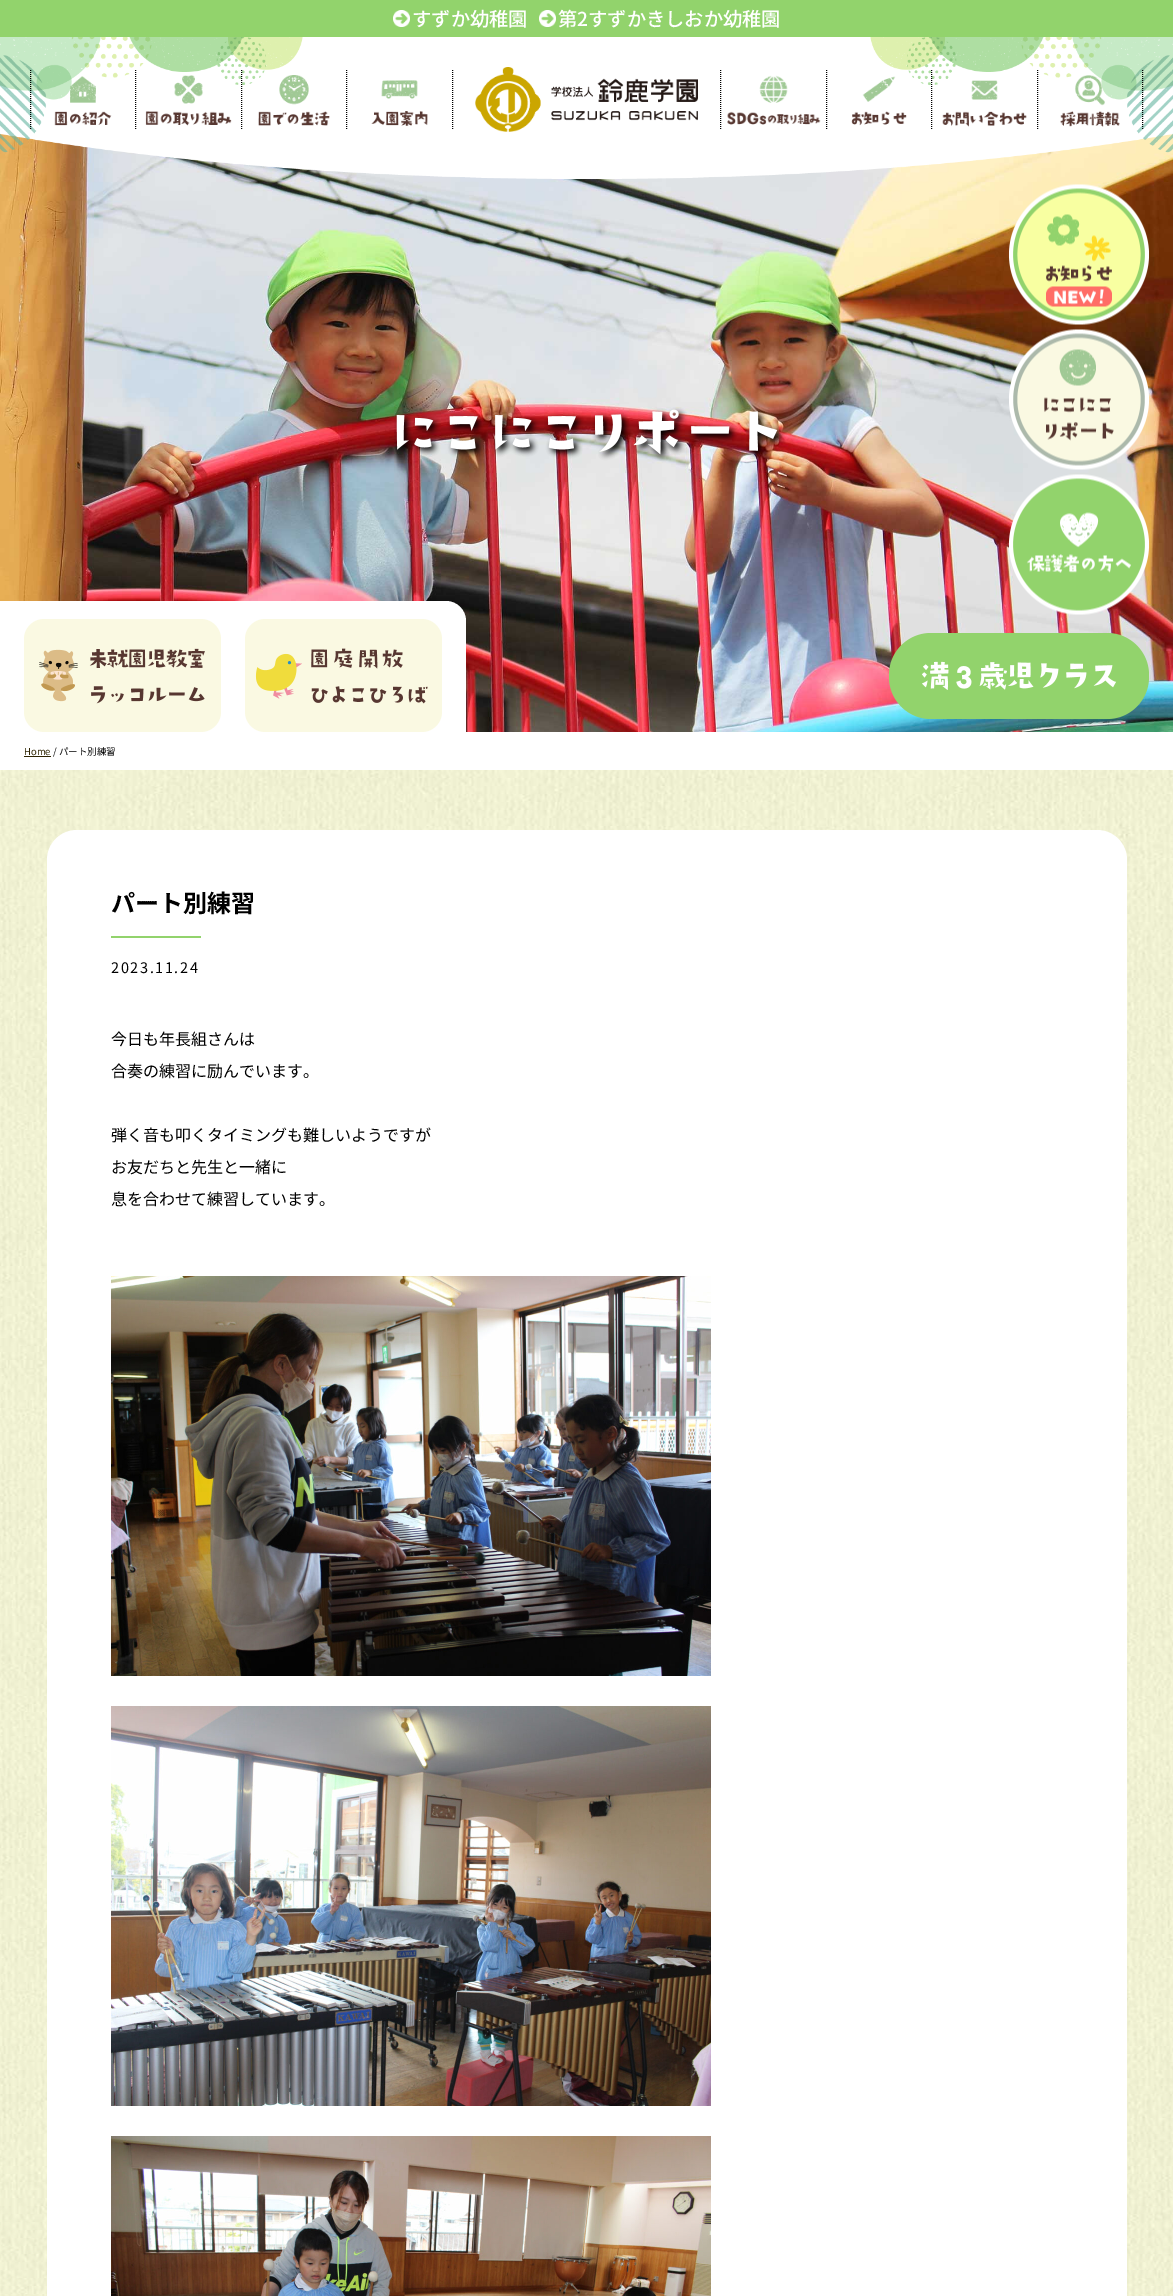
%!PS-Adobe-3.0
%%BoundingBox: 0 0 1173 2296
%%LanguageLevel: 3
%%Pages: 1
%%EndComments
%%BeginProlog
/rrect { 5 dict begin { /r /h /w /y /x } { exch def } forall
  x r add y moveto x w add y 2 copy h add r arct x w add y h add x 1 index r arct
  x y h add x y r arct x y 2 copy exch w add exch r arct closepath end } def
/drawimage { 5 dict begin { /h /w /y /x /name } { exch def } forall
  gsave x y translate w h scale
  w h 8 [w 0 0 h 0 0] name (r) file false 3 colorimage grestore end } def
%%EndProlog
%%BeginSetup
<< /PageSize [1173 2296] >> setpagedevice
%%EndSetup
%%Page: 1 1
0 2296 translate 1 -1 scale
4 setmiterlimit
1 setgray
0 0 1173 2296 rectfill
0.573 0.827 0.424 setrgbcolor
0 0 1173 37 rectfill
(images/1.raw) 393 10 17 17 drawimage
(images/2.raw) 539 10 17 17 drawimage
(images/15.raw) 0 134 1173 598 drawimage
(images/14.raw) 0 132 1173 47 drawimage
(images/3.raw) 0 37 303 116 drawimage
(images/4.raw) 870 37 303 116 drawimage
0 setgray
[1 1] 0 setdash
newpath 30.5 70 moveto 30.5 129 lineto stroke
(images/5.raw) 54 76 58 50 drawimage
newpath 135.5 70 moveto 135.5 129 lineto stroke
(images/6.raw) 145 75 87 51 drawimage
newpath 241.5 70 moveto 241.5 129 lineto stroke
(images/7.raw) 258 75 72 51 drawimage
newpath 452.5 70 moveto 452.5 129 lineto stroke
newpath 346.5 70 moveto 346.5 129 lineto stroke
(images/8.raw) 371 80 57 46 drawimage
(images/9.raw) 475 67 223 65 drawimage
newpath 720.5 70 moveto 720.5 129 lineto stroke
(images/10.raw) 727 75 94 50 drawimage
newpath 826.5 70 moveto 826.5 129 lineto stroke
(images/11.raw) 851 76 56 50 drawimage
newpath 931.5 70 moveto 931.5 129 lineto stroke
(images/12.raw) 942 80 85 47 drawimage
newpath 1142.5 70 moveto 1142.5 129 lineto stroke
newpath 1037.5 70 moveto 1037.5 129 lineto stroke
(images/13.raw) 1060 75 60 52 drawimage
(images/16.raw) 394 407 391 54 drawimage
(images/17.raw) 1009 184 140 141 drawimage
(images/18.raw) 1046 286 66 21 drawimage
(images/19.raw) 1009 329 140 141 drawimage
(images/20.raw) 1009 474 140 141 drawimage
1 setgray
newpath 0 601 moveto 446 601 lineto 457 601 466 610 466 621 curveto 466 733 lineto 0 733 lineto closepath fill
(images/21.raw) 24 619 197 113 drawimage
(images/22.raw) 245 619 197 113 drawimage
(images/23.raw) 889 633 260 86 drawimage
0.176 0.137 0 setrgbcolor
24 756 27 1 rectfill
(images/24.raw) 0 770 1173 1526 drawimage
1 setgray
47 830 1080 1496 30 rrect fill
0.573 0.827 0.424 setrgbcolor
111 936 90 2 rectfill
(images/25.raw) 111 1276 600 400 drawimage
(images/26.raw) 111 1706 600 400 drawimage
(images/27.raw) 111 2136 600 160 drawimage
/NotoSansJP-Medium [19.25 0 0 -19.25 0 0] selectfont
1 setgray
412 26 moveto (すずか幼稚園) show
558 26 moveto (第2すずかきしおか幼稚園) show
/NotoSansJP-Regular [9.5 0 0 -9.5 0 0] selectfont
0.176 0.137 0 setrgbcolor
24 755 moveto (Home) show
0 setgray
53 755 moveto (/ パート別練習) show
/NotoSansJP-Bold [24 0 0 -24 0 0] selectfont
111 912 moveto (パート別練習) show
/NotoSansJP-Regular [14.5 0 0 -14.5 0 0] selectfont
111 973 moveto 1.6 0 (2023.11.24) ashow
/NotoSansJP-Regular [16 0 0 -16 0 0] selectfont
111 1045 moveto (今日も年長組さんは) show
111 1077 moveto (合奏の練習に励んでいます。) show
111 1141 moveto (弾く音も叩くタイミングも難しいようですが) show
111 1173 moveto (お友だちと先生と一緒に) show
111 1205 moveto (息を合わせて練習しています。) show
showpage
%%EOF
